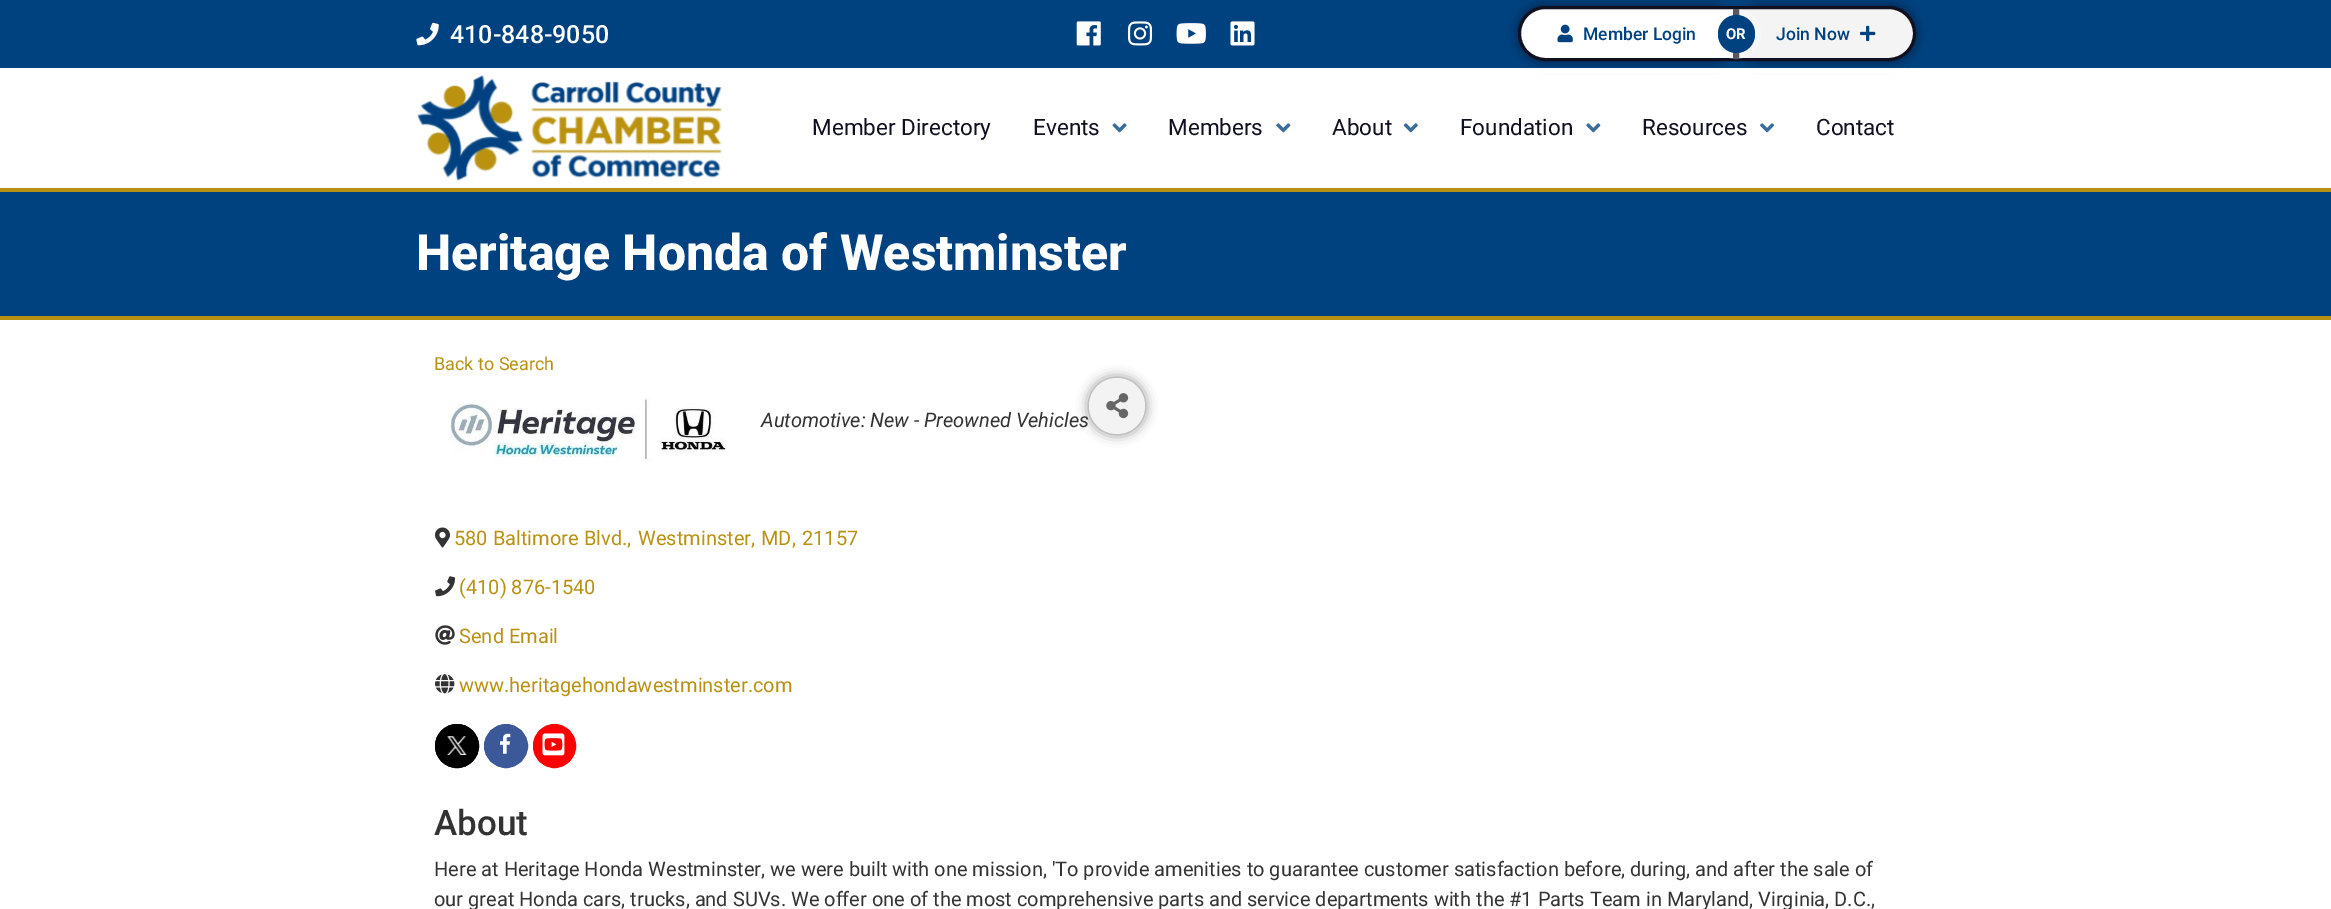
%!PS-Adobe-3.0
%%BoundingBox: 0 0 2331 909
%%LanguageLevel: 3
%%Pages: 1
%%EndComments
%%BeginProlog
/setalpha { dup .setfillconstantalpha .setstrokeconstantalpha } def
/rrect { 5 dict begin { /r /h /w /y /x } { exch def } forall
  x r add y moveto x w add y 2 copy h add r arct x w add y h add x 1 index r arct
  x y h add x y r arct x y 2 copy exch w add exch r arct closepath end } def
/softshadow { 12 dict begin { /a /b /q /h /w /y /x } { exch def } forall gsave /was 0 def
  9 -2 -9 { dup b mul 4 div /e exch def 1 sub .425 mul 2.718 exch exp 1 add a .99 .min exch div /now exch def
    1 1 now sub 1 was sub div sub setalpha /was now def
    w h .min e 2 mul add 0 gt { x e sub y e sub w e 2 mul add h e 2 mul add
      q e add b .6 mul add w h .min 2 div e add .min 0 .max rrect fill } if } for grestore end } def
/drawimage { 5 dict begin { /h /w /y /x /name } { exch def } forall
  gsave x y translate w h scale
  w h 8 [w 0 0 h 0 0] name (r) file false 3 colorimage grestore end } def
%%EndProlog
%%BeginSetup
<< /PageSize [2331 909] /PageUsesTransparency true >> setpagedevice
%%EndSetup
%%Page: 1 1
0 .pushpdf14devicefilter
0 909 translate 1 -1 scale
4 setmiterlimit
1 setgray
0 0 2331 909 rectfill
0 0.259 0.502 setrgbcolor
0 0 2331 68 rectfill
(images/1.raw) 416 22 23 24 drawimage
(images/2.raw) 1076 21 25 25 drawimage
(images/3.raw) 1127 21 26 25 drawimage
(images/4.raw) 1176 23 30 21 drawimage
(images/5.raw) 1230 21 25 25 drawimage
0 setgray
1518 6 218 55 27.5 6 0.5 softshadow
1 setgray
newpath 1545.5 7.5 moveto 1734.5 7.5 lineto 1734.5 59.5 lineto 1545.5 59.5 lineto 1531 59.5 1519.5 48 1519.5 33.5 curveto 1519.5 19 1531 7.5 1545.5 7.5 curveto closepath gsave fill grestore
0.067 0.063 0.125 setrgbcolor
3 setlinewidth
stroke
(images/6.raw) 1557 24 16 19 drawimage
0 setgray
1736 6 180 55 27.5 6 0.5 softshadow
0.957 setgray
newpath 1737.5 7.5 moveto 1888.5 7.5 lineto 1903 7.5 1914.5 19 1914.5 33.5 curveto 1914.5 48 1903 59.5 1888.5 59.5 curveto 1737.5 59.5 lineto closepath gsave fill grestore
0.067 0.063 0.125 setrgbcolor
stroke
0.3 setalpha
1 setgray
6 setlinewidth
newpath 1736 34 22 0 360 arc closepath stroke
1 setalpha
0 0.259 0.502 setrgbcolor
1718 15 37 38 18.5 rrect fill
(images/7.raw) 1860 25 16 17 drawimage
0.96 setalpha
1 setgray
1528 68 378 5 rectfill
1 setalpha
(images/8.raw) 417 75 305 106 drawimage
(images/9.raw) 1112 123 15 10 drawimage
(images/10.raw) 1276 123 15 10 drawimage
(images/11.raw) 1403 123 15 10 drawimage
(images/10.raw) 1586 123 15 10 drawimage
(images/12.raw) 1760 123 15 10 drawimage
0 0.259 0.502 setrgbcolor
0 192 2331 124 rectfill
0.722 0.569 0.071 setrgbcolor
0 188 2331 4 rectfill
0 316 2331 4 rectfill
(images/13.raw) 447 398 282 64 drawimage
0 setgray
1089 378 56 56 28 6 0.5 softshadow
0.953 setgray
newpath 1117 406 28 0 360 arc closepath fill
(images/14.raw) 1106 393 23 26 drawimage
(images/15.raw) 435 527 15 21 drawimage
(images/16.raw) 435 576 20 21 drawimage
(images/17.raw) 435 625 20 20 drawimage
(images/18.raw) 435 674 20 20 drawimage
0 setgray
newpath 457 746 22 0 360 arc closepath fill
(images/19.raw) 447 736 20 19 drawimage
1 setlinewidth
newpath 457 746 21.5 0 360 arc closepath stroke
0.231 0.349 0.596 setrgbcolor
newpath 506 746 21.5 0 360 arc closepath gsave fill grestore
stroke
(images/20.raw) 500 733 11 21 drawimage
1 0 0 setrgbcolor
533.5 724.5 42 43 21 rrect gsave fill grestore
stroke
(images/21.raw) 542 733 23 23 drawimage
/Roboto-Medium [25 0 0 -25 0 0] selectfont
1 setgray
450 43 moveto (410-848-9050) show
/Roboto-Medium [17.5 0 0 -17.5 0 0] selectfont
0 0.259 0.502 setrgbcolor
1583 40 moveto (Member Login) show
/Roboto-Bold [15 0 0 -15 0 0] selectfont
1 setgray
1726 39 moveto (OR) show
/Roboto-Medium [17.5 0 0 -17.5 0 0] selectfont
0 0.259 0.502 setrgbcolor
1776 40 moveto (Join Now) show
/Roboto-Regular [22.5 0 0 -22.5 0 0] selectfont
0.067 0.063 0.125 setrgbcolor
812 135 moveto (Member Directory) show
1033 135 moveto (Events) show
1168 135 moveto (Members) show
1332 135 moveto (About) show
1460 135 moveto (Foundation) show
1642 135 moveto (Resources) show
1816 135 moveto (Contact) show
/Roboto-ExtraBold [50 0 0 -50 0 0] selectfont
1 setgray
416 270 moveto (Heritage Honda of Westminster) show
/Roboto-Regular [18 0 0 -18 0 0] selectfont
0.722 0.569 0.071 setrgbcolor
434 370 moveto (Back to Search) show
/Roboto-Italic [20 0 0 -20 0 0] selectfont
0.2 setgray
761 427 moveto (Automotive: New - Preowned Vehicles) show
/Roboto-Regular [20 0 0 -20 0 0] selectfont
0.722 0.569 0.071 setrgbcolor
454 545 moveto (580 Baltimore Blvd.,) show
638 545 moveto (Westminster,) show
761 545 moveto (MD,) show
802 545 moveto (21157) show
459 594 moveto (\(410\) 876-1540) show
459 643 moveto (Send Email) show
459 692 moveto (www.heritagehondawestminster.com) show
/Roboto-Medium [35 0 0 -35 0 0] selectfont
0.2 setgray
434 835 moveto (About) show
/Roboto-Regular [20 0 0 -20 0 0] selectfont
434 876 moveto (Here at Heritage Honda Westminster, we were built with one mission, 'To provide amenities to guarantee customer satisfaction before, during, and after the sale of) show
434 906 moveto (our great Honda cars, trucks, and SUVs. We offer one of the most comprehensive parts and service departments with the #1 Parts Team in Maryland, Virginia, D.C.,) show
.poppdf14devicefilter showpage
%%EOF
